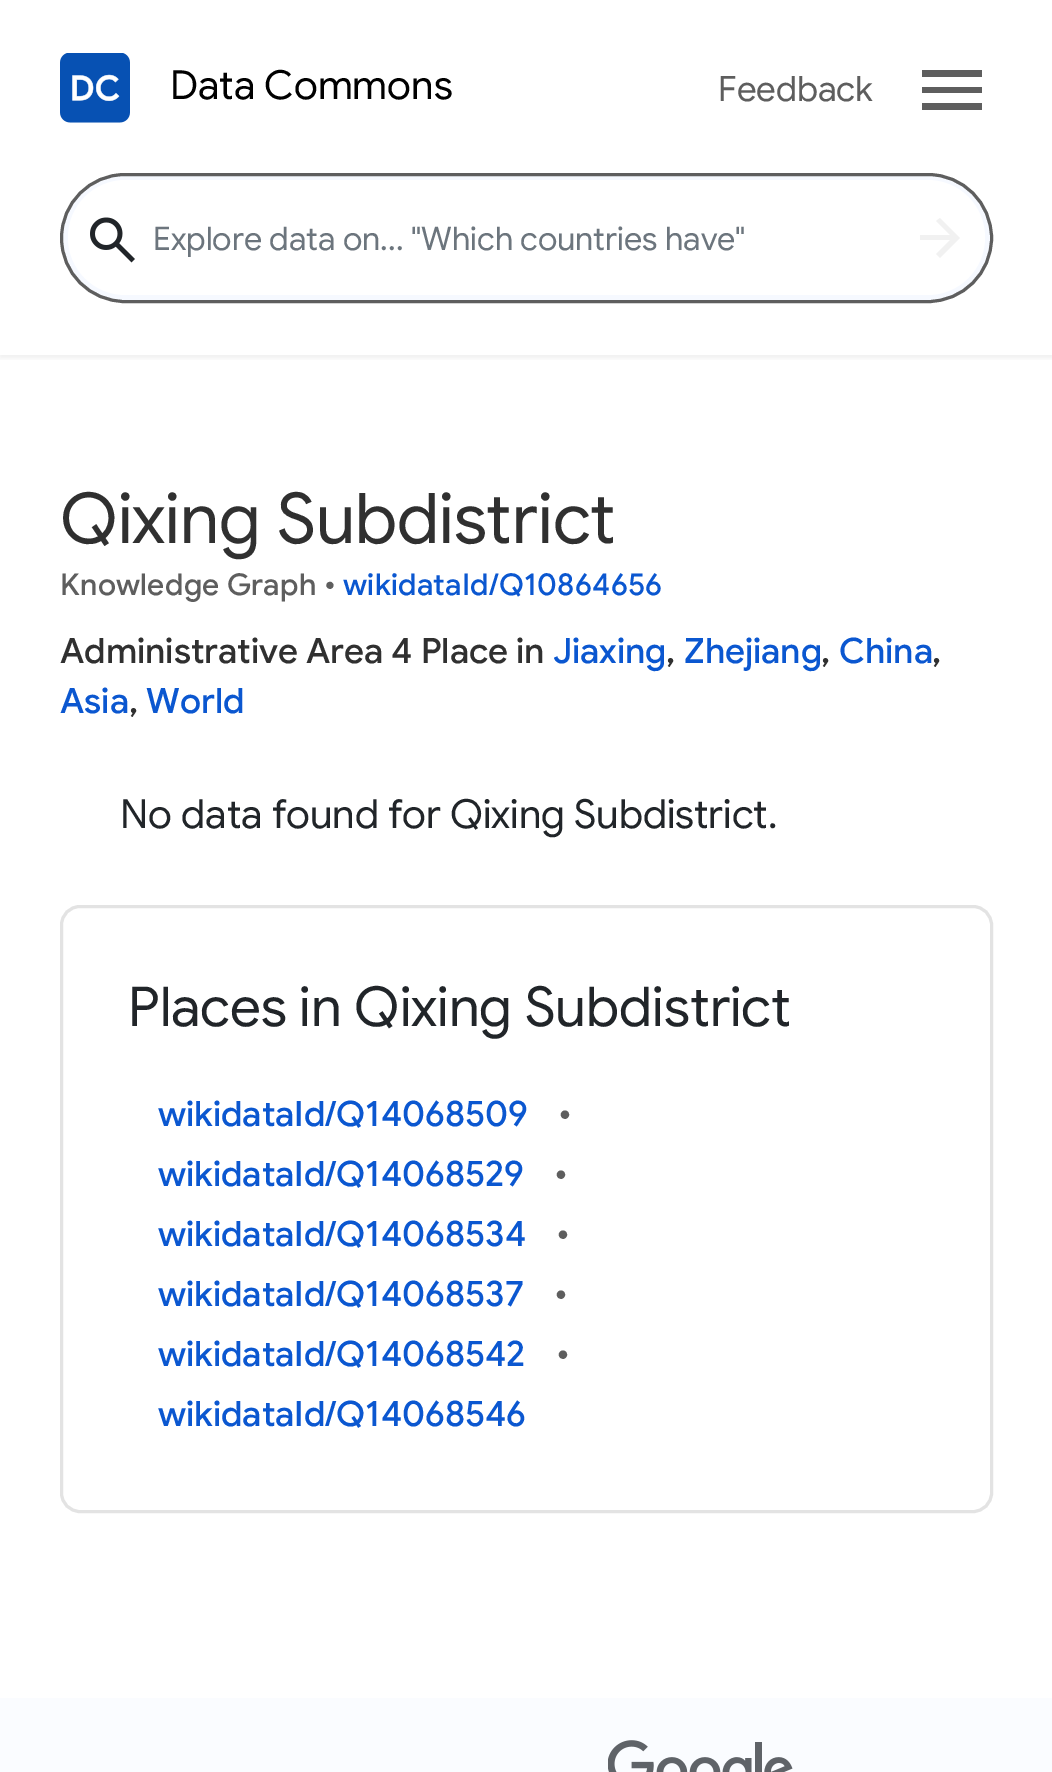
%!PS-Adobe-3.0
%%BoundingBox: 0 0 1052 1772
%%LanguageLevel: 3
%%Pages: 1
%%EndComments
%%BeginProlog
/setalpha { dup .setfillconstantalpha .setstrokeconstantalpha } def
/rrect { 5 dict begin { /r /h /w /y /x } { exch def } forall
  x r add y moveto x w add y 2 copy h add r arct x w add y h add x 1 index r arct
  x y h add x y r arct x y 2 copy exch w add exch r arct closepath end } def
/softshadow { 12 dict begin { /a /b /q /h /w /y /x } { exch def } forall gsave /was 0 def
  9 -2 -9 { dup b mul 4 div /e exch def 1 sub .425 mul 2.718 exch exp 1 add a .99 .min exch div /now exch def
    1 1 now sub 1 was sub div sub setalpha /was now def
    w h .min e 2 mul add 0 gt { x e sub y e sub w e 2 mul add h e 2 mul add
      q e add b .6 mul add w h .min 2 div e add .min 0 .max rrect fill } if } for grestore end } def
/drawimage { 5 dict begin { /h /w /y /x /name } { exch def } forall
  gsave x y translate w h scale
  w h 8 [w 0 0 h 0 0] name (r) file false 3 colorimage grestore end } def
%%EndProlog
%%BeginSetup
<< /PageSize [1052 1772] /PageUsesTransparency true >> setpagedevice
%%EndSetup
%%Page: 1 1
0 .pushpdf14devicefilter
0 1772 translate 1 -1 scale
4 setmiterlimit
1 setgray
0 0 1052 1772 rectfill
gsave
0 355 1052 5 rectclip
0.369 setgray
0 3 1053 355 0 2.5 0.1 softshadow
grestore
(images/1.raw) 60 53 70 70 drawimage
0.369 setgray
newpath 922 110 moveto 922 103 lineto 982 103 lineto 982 110 lineto closepath 922 93 moveto 922 87 lineto 982 87 lineto 982 93 lineto closepath 922 77 moveto 922 70 lineto 982 70 lineto 982 77 lineto closepath fill
0.965 0.976 1 setrgbcolor
61.5 174.5 930 127 63.5 rrect gsave fill grestore
0.369 setgray
3 setlinewidth
stroke
1 setgray
68 180 917 115 57.5 rrect fill
(images/2.raw) 90 217 45 46 drawimage
0.945 setgray
newpath 950 240 moveto 920 240 lineto 920 235 lineto 950 235 lineto 936 221 lineto 940 218 lineto 960 238 lineto 940 258 lineto 936 254 lineto closepath fill
0.89 setgray
61.5 906.5 930 605 18.5 rrect stroke
0.98 0.988 1 setrgbcolor
0 1698 1052 74 rectfill
(images/3.raw) 608 1740 185 32 drawimage
/GoogleSans-Regular [40 0 0 -40 0 0] selectfont
0 setgray
170 99 moveto (Data Commons) show
/GoogleSans-Regular [35 0 0 -35 0 0] selectfont
0.369 setgray
718 101 moveto (Feedback) show
/GoogleSans-Regular [32.5 0 0 -32.5 0 0] selectfont
0.424 0.459 0.49 setrgbcolor
153 250 moveto (Explore data on... "Which countries have") show
/GoogleSans-Regular [70 0 0 -70 0 0] selectfont
0.188 setgray
60 543 moveto (Qixing Subdistrict) show
/GoogleSans-Medium [30 0 0 -30 0 0] selectfont
0.369 setgray
60 595 moveto 0.25 0 (Knowledge Graph •) ashow
0.043 0.341 0.816 setrgbcolor
343 595 moveto 0.25 0 (wikidataId/Q10864656) ashow
/GoogleSans-Medium [35 0 0 -35 0 0] selectfont
0.188 setgray
60 663 moveto (Administrative Area 4 Place in) show
0.043 0.341 0.816 setrgbcolor
553 663 moveto (Jiaxing) show
0.188 setgray
666 663 moveto (,) show
0.043 0.341 0.816 setrgbcolor
684 663 moveto (Zhejiang) show
0.188 setgray
821 663 moveto (,) show
0.043 0.341 0.816 setrgbcolor
839 663 moveto (China) show
0.188 setgray
932 663 moveto (,) show
0.043 0.341 0.816 setrgbcolor
60 713 moveto (Asia) show
0.188 setgray
129 713 moveto (,) show
0.043 0.341 0.816 setrgbcolor
146 713 moveto (World) show
/GoogleSans-Regular [40 0 0 -40 0 0] selectfont
0.129 0.145 0.161 setrgbcolor
120 828 moveto (No data found for Qixing Subdistrict.) show
/GoogleSans-Regular [55 0 0 -55 0 0] selectfont
128 1026 moveto (Places in Qixing Subdistrict) show
/GoogleSans-Medium [35 0 0 -35 0 0] selectfont
0.043 0.341 0.816 setrgbcolor
158 1126 moveto (wikidataId/Q14068509) show
0.369 setgray
558 1126 moveto (•) show
0.043 0.341 0.816 setrgbcolor
158 1186 moveto (wikidataId/Q14068529) show
0.369 setgray
554 1186 moveto (•) show
0.043 0.341 0.816 setrgbcolor
158 1246 moveto (wikidataId/Q14068534) show
0.369 setgray
556 1246 moveto (•) show
0.043 0.341 0.816 setrgbcolor
158 1306 moveto (wikidataId/Q14068537) show
0.369 setgray
554 1306 moveto (•) show
0.043 0.341 0.816 setrgbcolor
158 1366 moveto (wikidataId/Q14068542) show
0.369 setgray
556 1366 moveto (•) show
0.043 0.341 0.816 setrgbcolor
158 1426 moveto (wikidataId/Q14068546) show
.poppdf14devicefilter showpage
%%EOF
